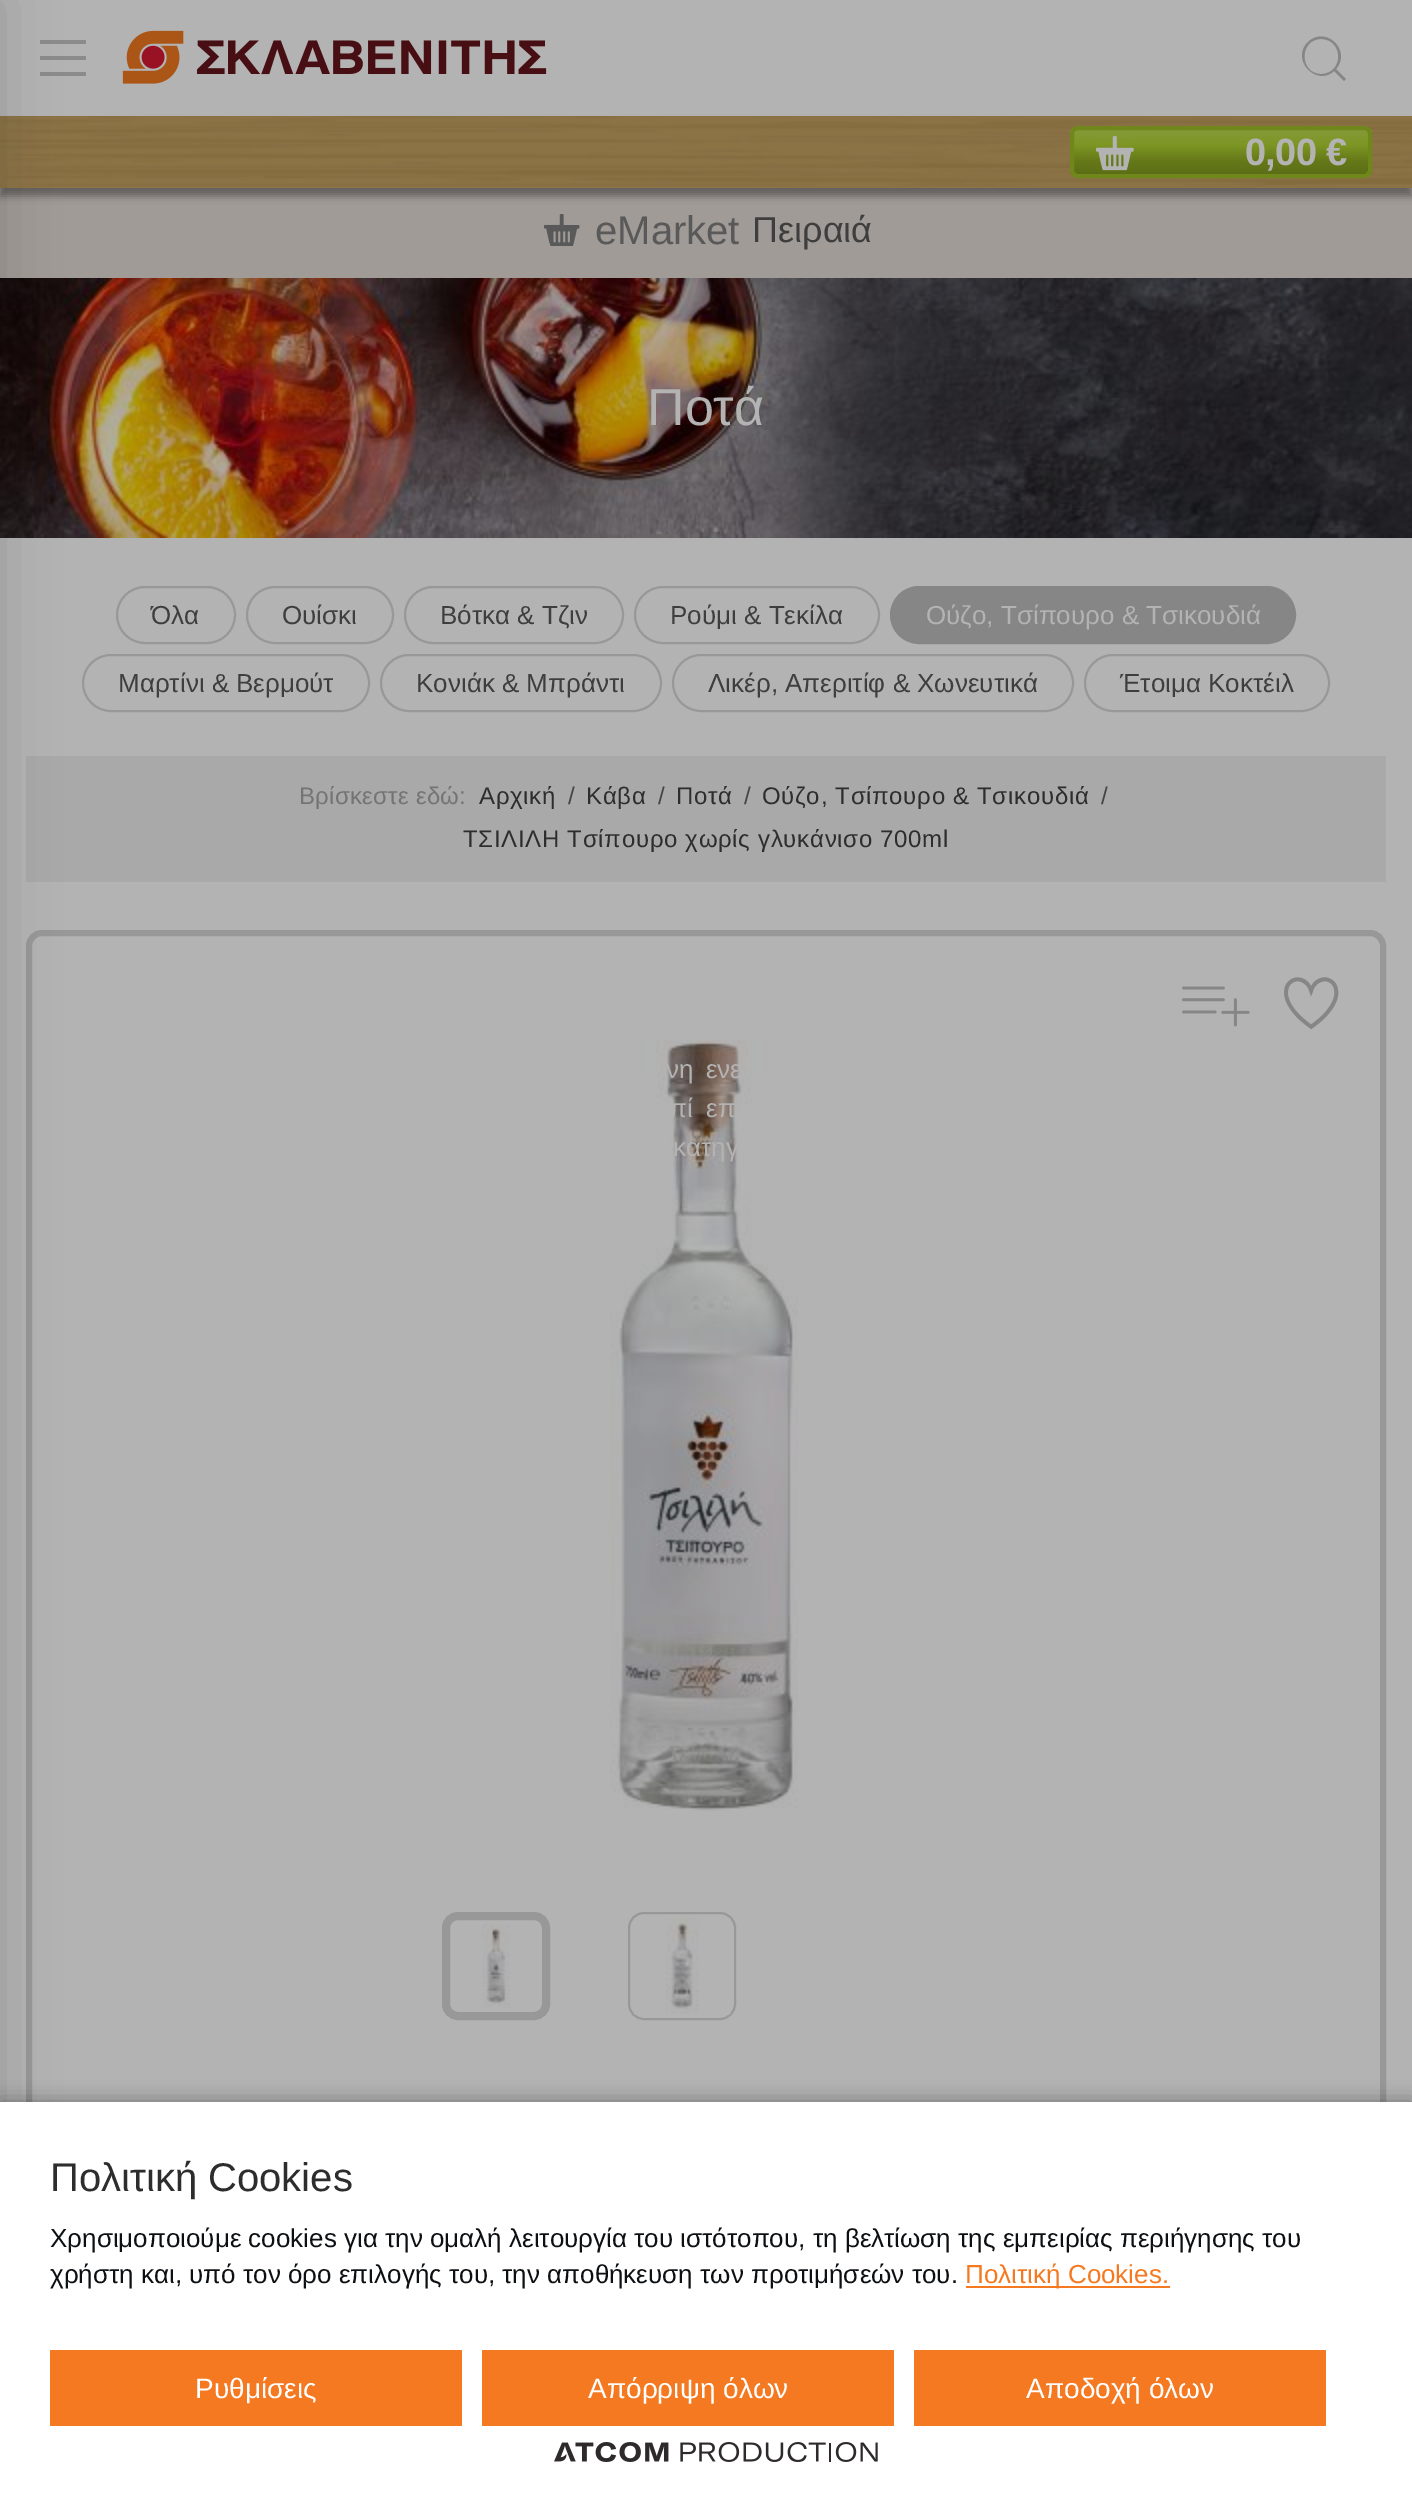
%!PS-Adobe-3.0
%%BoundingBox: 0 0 1412 2495
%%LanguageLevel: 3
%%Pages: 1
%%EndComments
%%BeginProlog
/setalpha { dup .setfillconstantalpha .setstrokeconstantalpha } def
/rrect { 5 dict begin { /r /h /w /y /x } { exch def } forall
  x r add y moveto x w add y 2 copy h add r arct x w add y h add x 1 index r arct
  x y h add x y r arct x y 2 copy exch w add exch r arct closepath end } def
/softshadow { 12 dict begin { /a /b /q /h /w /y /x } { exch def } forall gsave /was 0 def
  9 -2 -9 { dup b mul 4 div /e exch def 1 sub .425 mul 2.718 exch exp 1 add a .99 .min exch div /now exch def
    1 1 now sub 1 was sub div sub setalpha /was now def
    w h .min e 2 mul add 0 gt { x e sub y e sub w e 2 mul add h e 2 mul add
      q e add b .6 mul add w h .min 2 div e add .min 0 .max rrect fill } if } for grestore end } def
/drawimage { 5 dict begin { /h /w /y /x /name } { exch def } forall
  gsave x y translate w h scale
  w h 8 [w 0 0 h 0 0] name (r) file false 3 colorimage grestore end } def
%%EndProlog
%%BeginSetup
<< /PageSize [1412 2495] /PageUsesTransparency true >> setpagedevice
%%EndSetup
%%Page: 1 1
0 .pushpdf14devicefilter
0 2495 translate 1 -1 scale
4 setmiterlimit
0.702 setgray
0 0 1412 2495 rectfill
0.545 setgray
40 40 46 4 rectfill
40 56 46 4 rectfill
40 72 46 4 rectfill
0.627 0.608 0.592 setrgbcolor
0 188 1412 90 rectfill
0 setgray
0 124 1412 72 0 4 0.38 softshadow
0.545 0.451 0.275 setrgbcolor
0 186 1412 2 rectfill
(images/2.raw) 0 116 1412 70 drawimage
(images/5.raw) 0 278 1412 260 drawimage
0.596 setgray
2 setlinewidth
83 655 286 56 28 rrect stroke
0.663 setgray
26 756 1360 126 rectfill
0.596 setgray
6 setlinewidth
29 933 1354 1352 13 rrect stroke
0.051 0.043 0.031 setrgbcolor
-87 0 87 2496 0 29 0.16 softshadow
(images/1.raw) 122 30 425 54 drawimage
0.525 setgray
newpath 1346 79 moveto 1336 69 lineto 1352 51 1326 25 1308 42 curveto 1290 60 1317 87 1334 71 curveto 1344 81 lineto closepath 1321 74 moveto 1299 74 1299 39 1321 39 curveto 1344 39 1344 74 1321 74 curveto closepath fill
gsave
1070 126 302 52 8 rrect clip newpath
gsave newpath 1070 130 moveto 1372 130 lineto 1372 174 lineto 1070 174 lineto closepath clip newpath
<< /ShadingType 2 /ColorSpace /DeviceRGB /Coords [1221 130 1221 174] /Extend [true true] /Function << /FunctionType 3 /Domain [0 1] /Functions [<< /FunctionType 2 /Domain [0 1] /C0 [0.522 0.604 0.224] /C1 [0.49 0.588 0.137] /N 1 >> << /FunctionType 2 /Domain [0 1] /C0 [0.49 0.588 0.137] /C1 [0.4 0.478 0.098] /N 1 >> << /FunctionType 2 /Domain [0 1] /C0 [0.4 0.478 0.098] /C1 [0.357 0.431 0.086] /N 1 >>] /Bounds [0.34 0.68] /Encode [0 1 0 1 0 1] >> >> shfill grestore
grestore
0.439 0.533 0.106 setrgbcolor
4 setlinewidth
1072 128 298 48 6 rrect stroke
(images/3.raw) 1096 136 38 35 drawimage
(images/4.raw) 544 214 36 32 drawimage
0.596 setgray
2 setlinewidth
117 587 118 56 28 rrect stroke
247 587 146 56 28 rrect stroke
405 587 218 56 28 rrect stroke
635 587 244 56 28 rrect stroke
0.525 setgray
891 587 404 56 28 rrect gsave fill grestore
stroke
0.596 setgray
381 655 280 56 28 rrect stroke
673 655 400 56 28 rrect stroke
1085 655 244 56 28 rrect stroke
(images/6.raw) 1182 986 68 41 drawimage
(images/7.raw) 1284 977 55 53 drawimage
(images/8.raw) 610 1040 188 771 drawimage
8 setlinewidth
446 1916 100 100 12 rrect stroke
(images/9.raw) 482 1924 28 84 drawimage
2 setlinewidth
629 1913 106 106 15 rrect stroke
(images/10.raw) 634 1918 97 97 drawimage
0 setgray
0 2102 1412 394 0 10 0.37 softshadow
1 setgray
0 2102 1412 393 rectfill
0.957 0.475 0.125 setrgbcolor
966 2286 204 2 rectfill
50 2350 412 76 rectfill
482 2350 412 76 rectfill
914 2350 412 76 rectfill
(images/11.raw) 554 2442 324 20 drawimage
/LiberationSans-Bold [38 0 0 -38 0 0] selectfont
0.702 setgray
1245 165 moveto -0.75 0 (0,00 €) ashow
/LiberationSans-Regular [40 0 0 -40 0 0] selectfont
0.349 setgray
595 244 moveto (eMarket) show
/LiberationSans-Regular [36 0 0 -36 0 0] selectfont
0.243 setgray
752 242 moveto (Πειραιά) show
/LiberationSans-Regular [52 0 0 -52 0 0] selectfont
0.702 setgray
647 425 moveto (Ποτά) show
/LiberationSans-Regular [26 0 0 -26 0 0] selectfont
0.243 setgray
151 624 moveto (Όλα) show
282 624 moveto (Ουίσκι) show
440 624 moveto (Βότκα & Τζιν) show
670 624 moveto (Ρούμι & Τεκίλα) show
0.702 setgray
926 624 moveto (Ούζο, Τσίπουρο & Τσικουδιά) show
0.243 setgray
118 692 moveto (Μαρτίνι & Βερμούτ) show
416 692 moveto (Κονιάκ & Μπράντι) show
708 692 moveto (Λικέρ, Απεριτίφ & Χωνευτικά) show
1120 692 moveto (Έτοιμα Κοκτέιλ) show
/LiberationSans-Regular [24 0 0 -24 0 0] selectfont
0.455 setgray
299 804 moveto 0.25 0 (Βρίσκεστε εδώ:) ashow
0.176 setgray
479 804 moveto 0.7 0 (Αρχική) ashow
0.275 0.271 0.267 setrgbcolor
568 804 moveto 0.7 0 (/) ashow
0.176 setgray
586 804 moveto 0.7 0 (Κάβα) ashow
0.275 0.271 0.267 setrgbcolor
658 804 moveto 0.7 0 (/) ashow
0.176 setgray
676 804 moveto 0.7 0 (Ποτά) ashow
0.275 0.271 0.267 setrgbcolor
744 804 moveto 0.7 0 (/) ashow
0.176 setgray
762 804 moveto 0.7 0 (Ούζο, Τσίπουρο & Τσικουδιά) ashow
0.275 0.271 0.267 setrgbcolor
1101 804 moveto 0.7 0 (/) ashow
0.176 setgray
463 847 moveto 0.7 0 (ΤΣΙΛΙΛΗ Τσίπουρο χωρίς γλυκάνισο 700ml) ashow
/LiberationSans-Regular [26 0 0 -26 0 0] selectfont
0.702 setgray
666 1078 moveto 5 0 32 (νη ενε) widthshow
669 1117 moveto 6 0 32 (πί επ) widthshow
673 1156 moveto 9 0 32 (κατηγ) widthshow
/LiberationSans-Regular [40 0 0 -40 0 0] selectfont
0.176 setgray
50 2191 moveto (Πολιτική Cookies) show
/LiberationSans-Regular [26 0 0 -26 0 0] selectfont
0.051 0.063 0.071 setrgbcolor
50 2247 moveto (Χρησιμοποιούμε cookies για την ομαλή λειτουργία του ιστότοπου, τη βελτίωση της εμπειρίας περιήγησης του) show
50 2283 moveto (χρήστη και, υπό τον όρο επιλογής του, την αποθήκευση των προτιμήσεών του.) show
0.957 0.475 0.125 setrgbcolor
965 2283 moveto (Πολιτική Cookies.) show
/LiberationSans-Regular [28 0 0 -28 0 0] selectfont
1 setgray
195 2398 moveto (Ρυθμίσεις) show
588 2398 moveto (Απόρριψη όλων) show
1026 2398 moveto (Αποδοχή όλων) show
.poppdf14devicefilter showpage
%%EOF
